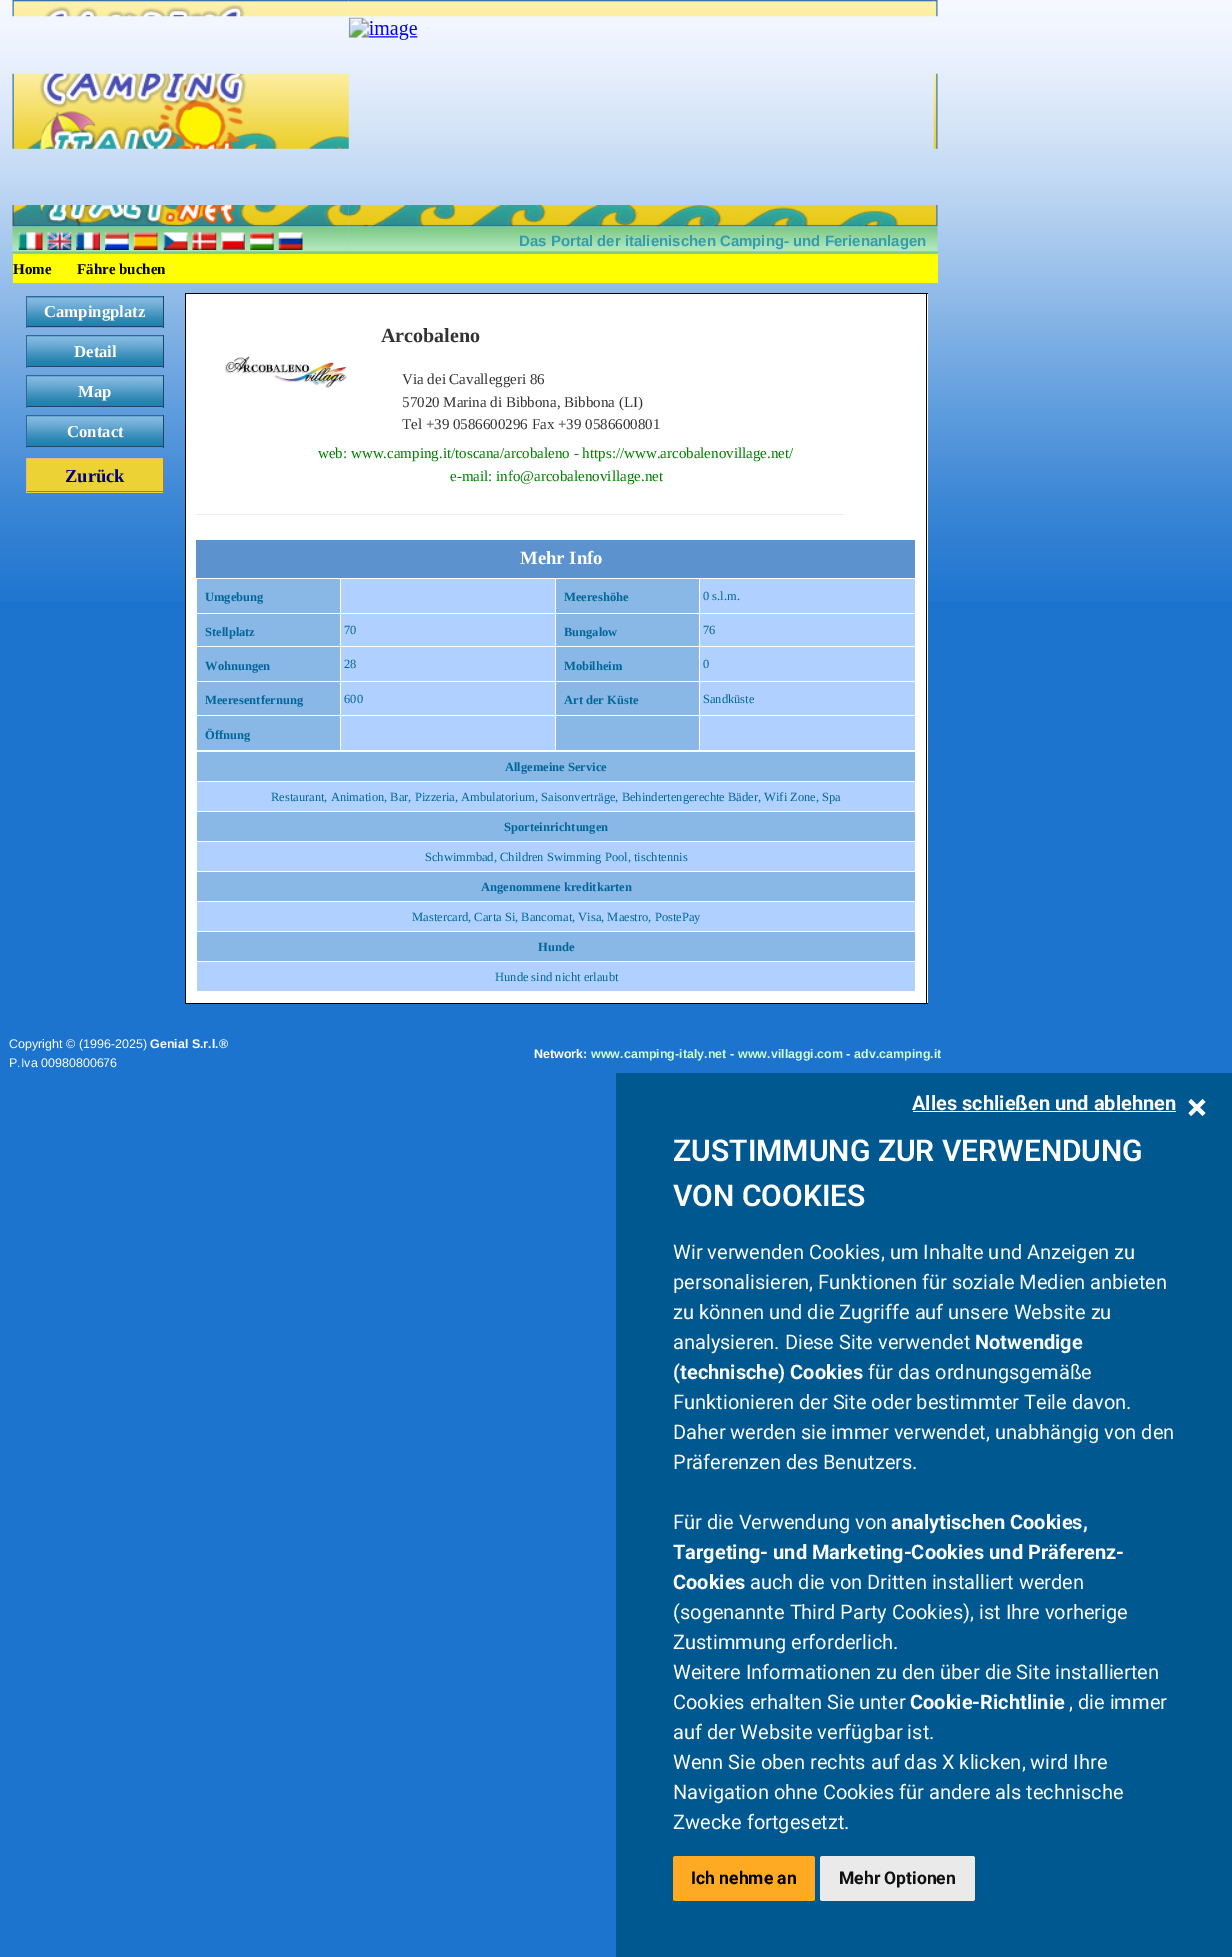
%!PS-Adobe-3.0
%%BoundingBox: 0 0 1232 1957
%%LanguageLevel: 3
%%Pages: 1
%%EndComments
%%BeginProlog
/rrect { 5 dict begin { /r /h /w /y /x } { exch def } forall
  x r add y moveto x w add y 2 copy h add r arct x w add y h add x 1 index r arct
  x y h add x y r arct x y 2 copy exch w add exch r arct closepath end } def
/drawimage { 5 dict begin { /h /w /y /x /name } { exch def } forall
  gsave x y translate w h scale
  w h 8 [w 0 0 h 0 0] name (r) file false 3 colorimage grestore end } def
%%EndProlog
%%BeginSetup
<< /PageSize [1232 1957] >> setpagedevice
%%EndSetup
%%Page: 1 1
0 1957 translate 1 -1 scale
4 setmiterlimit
0.11 0.455 0.808 setrgbcolor
0 0 1232 1957 rectfill
(images/1.raw) 0 0 1232 601 drawimage
(images/2.raw) 12 0 337 17 drawimage
(images/3.raw) 348 0 586 17 drawimage
(images/4.raw) 933 0 5 17 drawimage
(images/5.raw) 348 17 70 23 drawimage
(images/6.raw) 12 73 337 76 drawimage
(images/7.raw) 933 73 5 76 drawimage
(images/11.raw) 12 226 337 28 drawimage
(images/22.raw) 348 226 590 28 drawimage
(images/8.raw) 12 205 337 22 drawimage
(images/9.raw) 348 205 586 22 drawimage
(images/10.raw) 933 205 5 22 drawimage
(images/12.raw) 18 232 25 18 drawimage
(images/13.raw) 47 232 25 18 drawimage
(images/14.raw) 76 232 24 18 drawimage
(images/15.raw) 105 232 24 18 drawimage
(images/16.raw) 133 232 25 18 drawimage
(images/17.raw) 163 232 25 18 drawimage
(images/18.raw) 192 232 25 18 drawimage
(images/19.raw) 221 232 24 18 drawimage
(images/20.raw) 250 232 24 18 drawimage
(images/21.raw) 278 232 25 18 drawimage
1 1 0 setrgbcolor
13 254 925 29 rectfill
(images/23.raw) 27 297 136 31 drawimage
0.2 0.4 0.6 setrgbcolor
26 296 138 1 rectfill
0.133 0.267 0.4 setrgbcolor
163 296 1 32 rectfill
26 326 138 1 rectfill
0.2 0.4 0.6 setrgbcolor
26 296 1 32 rectfill
(images/24.raw) 27 336 136 30 drawimage
26 335 138 1 rectfill
0.133 0.267 0.4 setrgbcolor
163 335 1 33 rectfill
26 366 138 1 rectfill
0.2 0.4 0.6 setrgbcolor
26 335 1 33 rectfill
(images/24.raw) 27 376 136 30 drawimage
26 375 138 1 rectfill
0.133 0.267 0.4 setrgbcolor
163 375 1 33 rectfill
26 406 138 1 rectfill
0.2 0.4 0.6 setrgbcolor
26 375 1 33 rectfill
(images/24.raw) 27 416 136 30 drawimage
26 415 138 1 rectfill
0.133 0.267 0.4 setrgbcolor
163 415 1 33 rectfill
26 446 138 1 rectfill
0.2 0.4 0.6 setrgbcolor
26 415 1 33 rectfill
0.925 0.824 0.208 setrgbcolor
27 459 136 34 rectfill
0.937 0.71 0.486 setrgbcolor
26 458 138 1 rectfill
0.624 0.475 0.325 setrgbcolor
163 458 1 35 rectfill
26 491 138 1 rectfill
0.937 0.71 0.486 setrgbcolor
26 458 1 35 rectfill
1 setgray
186 294 742 709 rectfill
0 setgray
185 293 743 1 rectfill
926 293 1 711 rectfill
185 1003 743 1 rectfill
185 293 1 711 rectfill
(images/25.raw) 224 356 123 33 drawimage
0.933 setgray
196 514 648 1 rectfill
0.361 0.576 0.812 setrgbcolor
196 540 719 38 rectfill
0.541 0.722 0.902 setrgbcolor
197 579 143 34 rectfill
0.69 0.816 1 setrgbcolor
341 579 214 34 rectfill
0.541 0.722 0.902 setrgbcolor
556 579 143 34 rectfill
0.69 0.816 1 setrgbcolor
700 579 215 34 rectfill
0.541 0.722 0.902 setrgbcolor
197 614 143 67 rectfill
0.69 0.816 1 setrgbcolor
341 614 214 67 rectfill
0.541 0.722 0.902 setrgbcolor
556 614 143 67 rectfill
0.69 0.816 1 setrgbcolor
700 614 215 67 rectfill
1 setgray
196 646 720 1 rectfill
0.541 0.722 0.902 setrgbcolor
197 682 143 33 rectfill
0.69 0.816 1 setrgbcolor
341 682 214 33 rectfill
0.541 0.722 0.902 setrgbcolor
556 682 143 33 rectfill
0.69 0.816 1 setrgbcolor
700 682 215 33 rectfill
0.541 0.722 0.902 setrgbcolor
197 716 143 34 rectfill
0.69 0.816 1 setrgbcolor
341 716 214 34 rectfill
0.541 0.722 0.902 setrgbcolor
556 716 143 34 rectfill
0.69 0.816 1 setrgbcolor
700 716 215 34 rectfill
0.541 0.722 0.902 setrgbcolor
197 752 718 29 rectfill
0.69 0.816 1 setrgbcolor
197 782 718 29 rectfill
0.541 0.722 0.902 setrgbcolor
197 812 718 29 rectfill
0.69 0.816 1 setrgbcolor
197 842 718 29 rectfill
0.541 0.722 0.902 setrgbcolor
197 872 718 29 rectfill
0.69 0.816 1 setrgbcolor
197 902 718 29 rectfill
0.541 0.722 0.902 setrgbcolor
197 932 718 29 rectfill
0.69 0.816 1 setrgbcolor
197 962 718 29 rectfill
0 0.345 0.569 setrgbcolor
616 1073 616 884 rectfill
1 setgray
913 1111 263 1 rectfill
newpath 1202.5 1099 moveto 1205.5 1102 lineto 1191 1116 lineto 1188.5 1113 lineto closepath fill
newpath 1188.5 1102 moveto 1191 1099 lineto 1205.5 1113 lineto 1202.5 1116 lineto closepath fill
1 0.667 0.133 setrgbcolor
673 1856 142 45 2.5 rrect fill
0.918 setgray
820 1856 155 45 2.5 rrect fill
/LiberationSans-Bold [15 0 0 -15 0 0] selectfont
0.204 0.612 0.69 setrgbcolor
519 246 moveto (Das Portal der italienischen Camping- und Ferienanlagen) show
/LiberationSerif-Bold [15 0 0 -15 0 0] selectfont
0 setgray
13 274 moveto (Home) show
77 274 moveto (Fähre buchen) show
/LiberationSerif-Bold [16.75 0 0 -16.75 0 0] selectfont
1 setgray
44 317 moveto (Campingplatz) show
74 357 moveto (Detail) show
78 397 moveto (Map) show
67 437 moveto (Contact) show
/LiberationSerif-Bold [18.5 0 0 -18.5 0 0] selectfont
0 0 0.502 setrgbcolor
65 482 moveto (Zurück) show
/LiberationSerif-Bold [20 0 0 -20 0 0] selectfont
0.2 setgray
381 342 moveto (Arcobaleno) show
/LiberationSerif-Regular [15 0 0 -15 0 0] selectfont
402 384 moveto (Via dei Cavalleggeri 86) show
402 407 moveto (57020 Marina di Bibbona, Bibbona \(LI\)) show
402 429 moveto (Tel +39 0586600296 Fax +39 0586600801) show
0 0.502 0 setrgbcolor
318 458 moveto (web: www.camping.it/toscana/arcobaleno - https://www.arcobalenovillage.net/) show
450 481 moveto (e-mail: info@arcobalenovillage.net) show
/LiberationSerif-Bold [18.75 0 0 -18.75 0 0] selectfont
1 setgray
520 564 moveto (Mehr Info) show
/LiberationSerif-Bold [12.5 0 0 -12.5 0 0] selectfont
0 0.4 0.6 setrgbcolor
205 601 moveto (Umgebung) show
564 601 moveto (Meereshöhe) show
/LiberationSerif-Regular [12.5 0 0 -12.5 0 0] selectfont
703 600 moveto (0 s.l.m.) show
/LiberationSerif-Bold [12.5 0 0 -12.5 0 0] selectfont
205 636 moveto (Stellplatz) show
/LiberationSerif-Regular [12.5 0 0 -12.5 0 0] selectfont
344 634 moveto (70) show
/LiberationSerif-Bold [12.5 0 0 -12.5 0 0] selectfont
564 636 moveto (Bungalow) show
/LiberationSerif-Regular [12.5 0 0 -12.5 0 0] selectfont
703 634 moveto (76) show
/LiberationSerif-Bold [12.5 0 0 -12.5 0 0] selectfont
205 670 moveto (Wohnungen) show
/LiberationSerif-Regular [12.5 0 0 -12.5 0 0] selectfont
344 668 moveto (28) show
/LiberationSerif-Bold [12.5 0 0 -12.5 0 0] selectfont
564 670 moveto (Mobilheim) show
/LiberationSerif-Regular [12.5 0 0 -12.5 0 0] selectfont
703 668 moveto (0) show
/LiberationSerif-Bold [12.5 0 0 -12.5 0 0] selectfont
205 704 moveto (Meeresentfernung) show
/LiberationSerif-Regular [12.5 0 0 -12.5 0 0] selectfont
344 703 moveto (600) show
/LiberationSerif-Bold [12.5 0 0 -12.5 0 0] selectfont
564 704 moveto (Art der Küste) show
/LiberationSerif-Regular [12.5 0 0 -12.5 0 0] selectfont
703 703 moveto (Sandküste) show
/LiberationSerif-Bold [12.5 0 0 -12.5 0 0] selectfont
205 739 moveto (Öffnung) show
505 771 moveto (Allgemeine Service) show
/LiberationSerif-Regular [12.5 0 0 -12.5 0 0] selectfont
271 801 moveto (Restaurant, Animation, Bar, Pizzeria, Ambulatorium, Saisonverträge, Behindertengerechte Bäder, Wifi Zone, Spa) show
/LiberationSerif-Bold [12.5 0 0 -12.5 0 0] selectfont
504 831 moveto (Sporteinrichtungen) show
/LiberationSerif-Regular [12.5 0 0 -12.5 0 0] selectfont
425 861 moveto (Schwimmbad, Children Swimming Pool, tischtennis) show
/LiberationSerif-Bold [12.5 0 0 -12.5 0 0] selectfont
481 891 moveto (Angenommene kreditkarten) show
/LiberationSerif-Regular [12.5 0 0 -12.5 0 0] selectfont
412 921 moveto (Mastercard, Carta Si, Bancomat, Visa, Maestro, PostePay) show
/LiberationSerif-Bold [12.5 0 0 -12.5 0 0] selectfont
538 951 moveto (Hunde) show
/LiberationSerif-Regular [12.5 0 0 -12.5 0 0] selectfont
495 981 moveto (Hunde sind nicht erlaubt) show
/LiberationSans-Regular [12.5 0 0 -12.5 0 0] selectfont
1 setgray
9 1048 moveto (Copyright © \(1996-2025\)) show
/LiberationSans-Bold [12.5 0 0 -12.5 0 0] selectfont
150 1048 moveto (Genial S.r.l.®) show
/LiberationSans-Regular [12.5 0 0 -12.5 0 0] selectfont
9 1067 moveto (P.Iva 00980800676) show
/LiberationSans-Bold [12.5 0 0 -12.5 0 0] selectfont
534 1058 moveto (Network:) show
0.808 1 0.808 setrgbcolor
591 1058 moveto (www.camping-italy.net) show
1 setgray
730 1058 moveto (-) show
0.808 1 0.808 setrgbcolor
738 1058 moveto (www.villaggi.com) show
1 setgray
846 1058 moveto (-) show
0.808 1 0.808 setrgbcolor
854 1058 moveto (adv.camping.it) show
/Roboto-Bold [20 0 0 -20 0 0] selectfont
1 setgray
912 1110 moveto (Alles schließen und ablehnen) show
/Roboto-SemiBold [30 0 0 -30 0 0] selectfont
673 1161 moveto (ZUSTIMMUNG ZUR VERWENDUNG) show
673 1206 moveto (VON COOKIES) show
/Roboto-Regular [20 0 0 -20 0 0] selectfont
673 1259 moveto (Wir verwenden Cookies, um Inhalte und Anzeigen zu) show
673 1289 moveto (personalisieren, Funktionen für soziale Medien anbieten) show
673 1319 moveto (zu können und die Zugriffe auf unsere Website zu) show
673 1349 moveto (analysieren. Diese Site verwendet) show
/Roboto-Bold [20 0 0 -20 0 0] selectfont
975 1349 moveto (Notwendige) show
673 1379 moveto (\(technische\) Cookies) show
/Roboto-Regular [20 0 0 -20 0 0] selectfont
868 1379 moveto (für das ordnungsgemäße) show
673 1409 moveto (Funktionieren der Site oder bestimmter Teile davon.) show
673 1439 moveto (Daher werden sie immer verwendet, unabhängig von den) show
673 1469 moveto (Präferenzen des Benutzers.) show
673 1529 moveto (Für die Verwendung von) show
/Roboto-Bold [20 0 0 -20 0 0] selectfont
891 1529 moveto (analytischen Cookies,) show
673 1559 moveto (Targeting- und Marketing-Cookies und Präferenz-) show
673 1589 moveto (Cookies) show
/Roboto-Regular [20 0 0 -20 0 0] selectfont
750 1589 moveto (auch die von Dritten installiert werden) show
673 1619 moveto (\(sogenannte Third Party Cookies\), ist Ihre vorherige) show
673 1649 moveto (Zustimmung erforderlich.) show
673 1679 moveto (Weitere Informationen zu den über die Site installierten) show
673 1709 moveto (Cookies erhalten Sie unter) show
/Roboto-Bold [20 0 0 -20 0 0] selectfont
910 1709 moveto (Cookie-Richtlinie) show
/Roboto-Regular [20 0 0 -20 0 0] selectfont
1069 1709 moveto (, die immer) show
673 1739 moveto (auf der Website verfügbar ist.) show
673 1769 moveto (Wenn Sie oben rechts auf das X klicken, wird Ihre) show
673 1799 moveto (Navigation ohne Cookies für andere als technische) show
673 1829 moveto (Zwecke fortgesetzt.) show
/Roboto-Bold [17.5 0 0 -17.5 0 0] selectfont
0 setgray
691 1884 moveto (Ich nehme an) show
0.067 setgray
839 1884 moveto (Mehr Optionen) show
showpage
%%EOF
